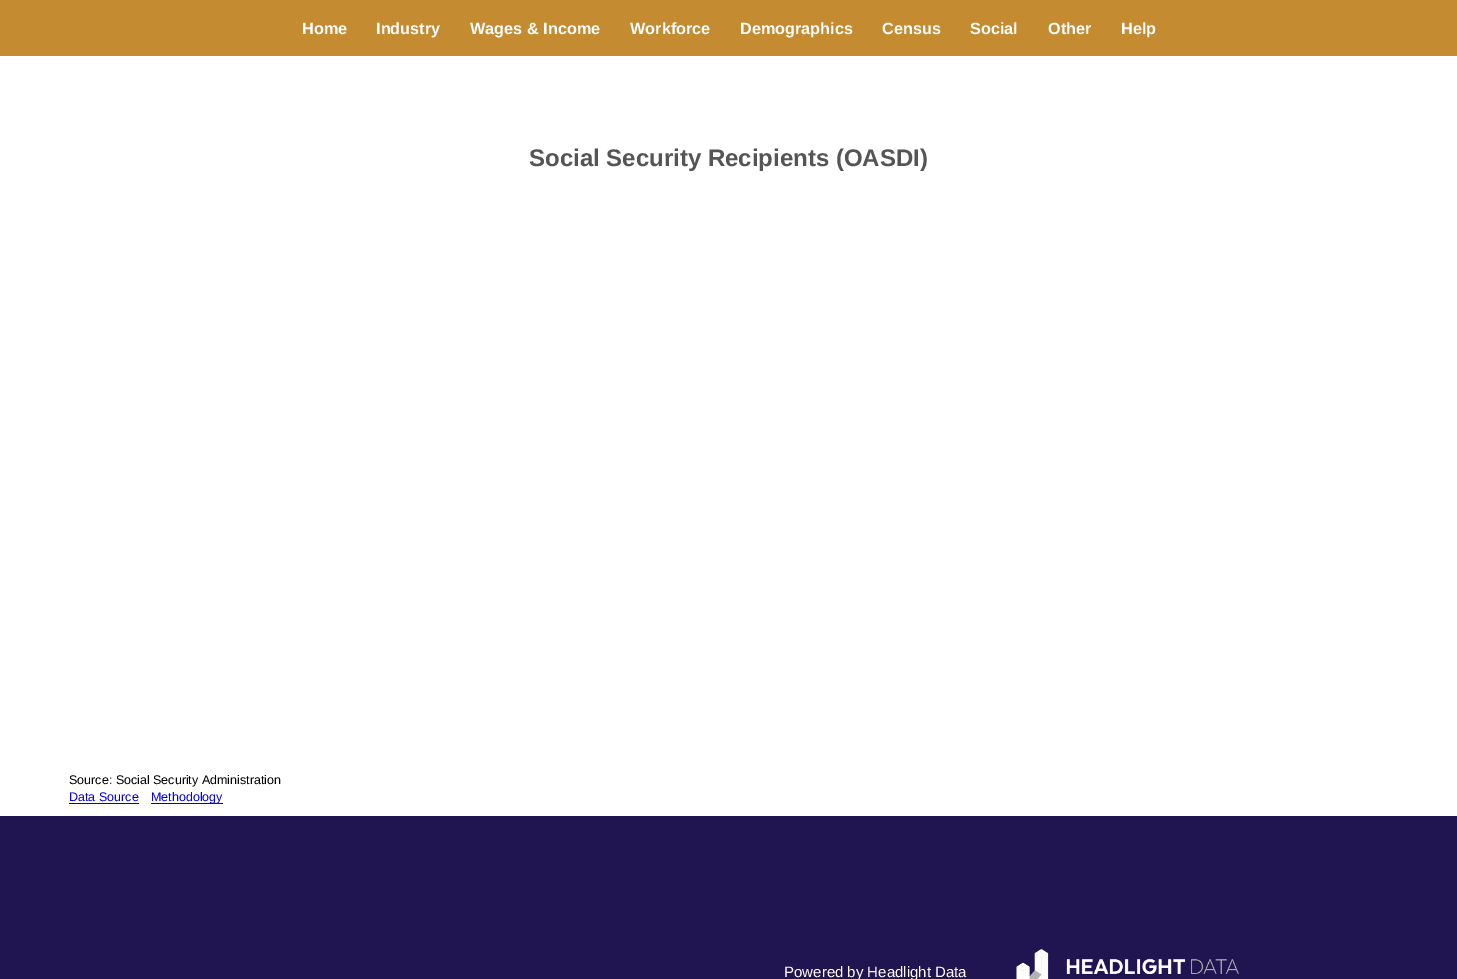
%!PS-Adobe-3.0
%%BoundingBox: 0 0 1457 979
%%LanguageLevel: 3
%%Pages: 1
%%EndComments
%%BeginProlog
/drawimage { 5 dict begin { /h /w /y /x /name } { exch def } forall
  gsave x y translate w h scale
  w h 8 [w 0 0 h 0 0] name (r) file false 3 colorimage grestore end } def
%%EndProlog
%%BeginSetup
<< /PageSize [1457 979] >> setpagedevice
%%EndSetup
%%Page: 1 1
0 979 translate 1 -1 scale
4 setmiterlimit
1 setgray
0 0 1457 979 rectfill
0.773 0.545 0.192 setrgbcolor
0 0 1457 56 rectfill
0 0 0.933 setrgbcolor
69 803 70 1 rectfill
151 803 72 1 rectfill
0.129 0.082 0.318 setrgbcolor
0 816 1457 163 rectfill
(images/1.raw) 1016 949 223 30 drawimage
/LiberationSans-Bold [16.25 0 0 -16.25 0 0] selectfont
1 setgray
302 34 moveto (Home) show
376 34 moveto (Industry) show
470 34 moveto (Wages & Income) show
630 34 moveto (Workforce) show
740 34 moveto (Demographics) show
882 34 moveto (Census) show
970 34 moveto (Social) show
1048 34 moveto (Other) show
1121 34 moveto (Help) show
/LiberationSans-Bold [24 0 0 -24 0 0] selectfont
0.333 setgray
529 166 moveto (Social Security Recipients \(OASDI\)) show
/LiberationSans-Regular [12.5 0 0 -12.5 0 0] selectfont
0 setgray
69 784 moveto (Source: Social Security Administration) show
0 0 0.933 setrgbcolor
69 801 moveto (Data Source) show
151 801 moveto (Methodology) show
/LiberationSans-Regular [15 0 0 -15 0 0] selectfont
1 setgray
784 977 moveto (Powered by Headlight Data) show
showpage
%%EOF
